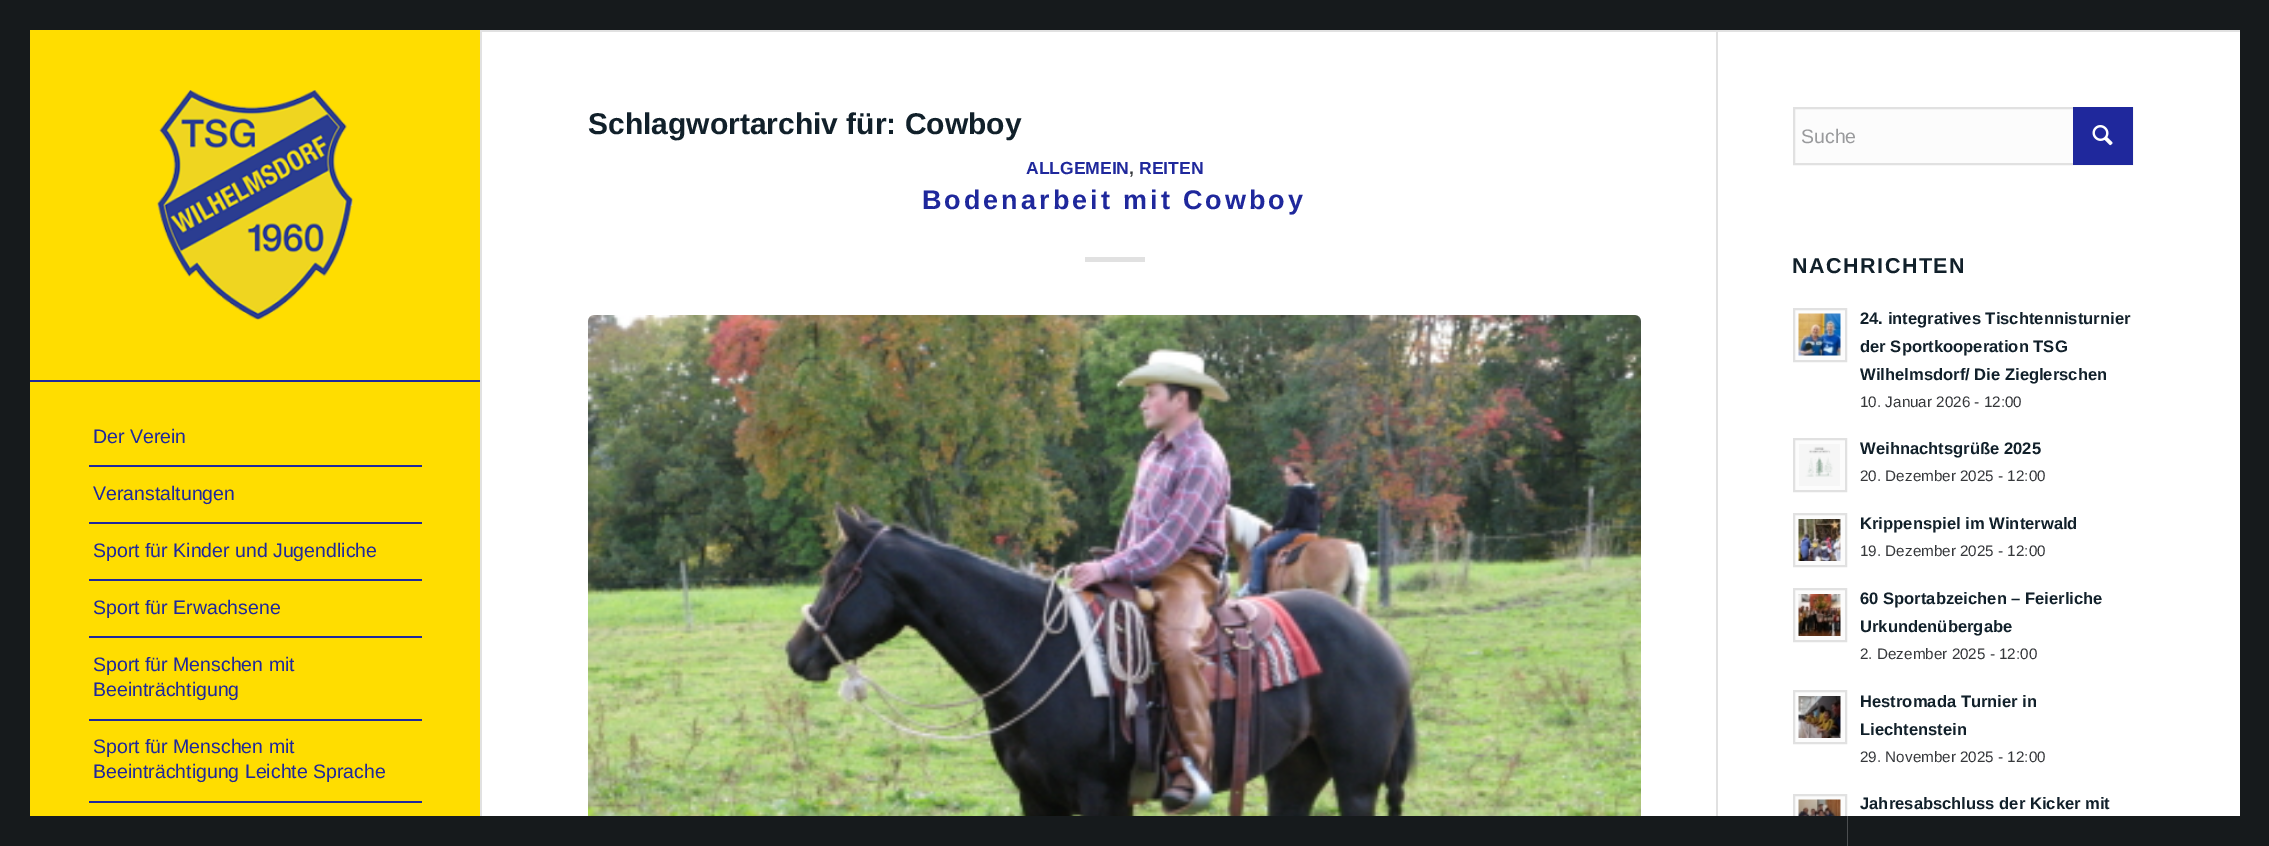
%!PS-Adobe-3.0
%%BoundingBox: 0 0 2269 846
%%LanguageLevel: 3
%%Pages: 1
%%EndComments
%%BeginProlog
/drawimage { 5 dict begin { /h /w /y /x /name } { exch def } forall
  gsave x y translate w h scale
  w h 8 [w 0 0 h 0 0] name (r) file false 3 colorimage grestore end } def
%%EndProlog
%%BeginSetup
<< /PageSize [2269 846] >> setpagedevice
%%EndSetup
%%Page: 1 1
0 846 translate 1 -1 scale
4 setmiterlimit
0.086 0.102 0.11 setrgbcolor
0 0 2269 846 rectfill
1 0.867 0 setrgbcolor
30 30 450 786 rectfill
0.122 0.157 0.612 setrgbcolor
30 380 450 2 rectfill
(images/1.raw) 157 90 196 230 drawimage
89 465 333 2 rectfill
89 522 333 2 rectfill
89 579 333 2 rectfill
89 636 333 2 rectfill
89 719 333 2 rectfill
89 801 333 2 rectfill
0.882 setgray
480 30 2 786 rectfill
1 setgray
482 32 1758 784 rectfill
0.882 setgray
482 30 1758 2 rectfill
1716 32 2 784 rectfill
1085 257 60 5 rectfill
(images/2.raw) 588 315 1053 501 drawimage
0.988 setgray
1795 109 278 54 rectfill
0.882 setgray
2 setlinewidth
1794 108 338 56 rectstroke
0.122 0.157 0.612 setrgbcolor
2073 107 60 58 rectfill
(images/3.raw) 2092 125 21 21 drawimage
0.988 setgray
newpath 1794 309 moveto 1846 309 lineto 1846 361 lineto 1794 361 lineto closepath gsave fill grestore
0.882 setgray
stroke
(images/4.raw) 1798 313 43 43 drawimage
0.988 setgray
newpath 1794 439 moveto 1846 439 lineto 1846 491 lineto 1794 491 lineto closepath gsave fill grestore
0.882 setgray
stroke
(images/5.raw) 1799 444 41 42 drawimage
0.988 setgray
newpath 1794 514 moveto 1846 514 lineto 1846 566 lineto 1794 566 lineto closepath gsave fill grestore
0.882 setgray
stroke
(images/6.raw) 1798 519 43 42 drawimage
0.988 setgray
newpath 1794 589 moveto 1846 589 lineto 1846 641 lineto 1794 641 lineto closepath gsave fill grestore
0.882 setgray
stroke
(images/7.raw) 1798 594 43 42 drawimage
0.988 setgray
newpath 1794 691 moveto 1846 691 lineto 1846 743 lineto 1794 743 lineto closepath gsave fill grestore
0.882 setgray
stroke
(images/8.raw) 1798 696 43 42 drawimage
0.988 setgray
1795 796 50 20 rectfill
0.882 setgray
1794 795 52 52 rectstroke
(images/9.raw) 1798 799 43 17 drawimage
0.086 0.102 0.11 setrgbcolor
1793 816 54 30 rectfill
/LiberationSans-Regular [19.5 0 0 -19.5 0 0] selectfont
0.122 0.157 0.612 setrgbcolor
93 443 moveto (Der Verein) show
93 500 moveto (Veranstaltungen) show
93 557 moveto (Sport für Kinder und Jugendliche) show
93 614 moveto (Sport für Erwachsene) show
93 671 moveto (Sport für Menschen mit) show
93 696 moveto (Beeinträchtigung) show
93 753 moveto (Sport für Menschen mit) show
93 778 moveto (Beeinträchtigung Leichte Sprache) show
/LiberationSans-Bold [30 0 0 -30 0 0] selectfont
0.067 0.125 0.165 setrgbcolor
588 134 moveto (Schlagwortarchiv für: Cowboy) show
/LiberationSans-Bold [17.5 0 0 -17.5 0 0] selectfont
0.122 0.157 0.612 setrgbcolor
1026 174 moveto (ALLGEMEIN) show
0.212 0.22 0.231 setrgbcolor
1129 174 moveto (,) show
0.122 0.157 0.612 setrgbcolor
1139 174 moveto (REITEN) show
/LiberationSans-Bold [27 0 0 -27 0 0] selectfont
922 209 moveto 3 0 (Bodenarbeit mit Cowboy) ashow
/LiberationSans-Regular [19.5 0 0 -19.5 0 0] selectfont
0.6 0.604 0.612 setrgbcolor
1801 143 moveto (Suche) show
/LiberationSans-Bold [21.5 0 0 -21.5 0 0] selectfont
0.067 0.125 0.165 setrgbcolor
1792 273 moveto 1.5 0 (NACHRICHTEN) ashow
/LiberationSans-Bold [16.6 0 0 -16.6 0 0] selectfont
1860 324 moveto (24. integratives Tischtennisturnier) show
1860 352 moveto (der Sportkooperation TSG) show
1860 380 moveto (Wilhelmsdorf/ Die Zieglerschen) show
/LiberationSans-Regular [15.25 0 0 -15.25 0 0] selectfont
0.212 0.22 0.231 setrgbcolor
1860 407 moveto (10. Januar 2026 - 12:00) show
/LiberationSans-Bold [16.6 0 0 -16.6 0 0] selectfont
0.067 0.125 0.165 setrgbcolor
1860 454 moveto (Weihnachtsgrüße 2025) show
/LiberationSans-Regular [15.25 0 0 -15.25 0 0] selectfont
0.212 0.22 0.231 setrgbcolor
1860 481 moveto (20. Dezember 2025 - 12:00) show
/LiberationSans-Bold [16.6 0 0 -16.6 0 0] selectfont
0.067 0.125 0.165 setrgbcolor
1860 529 moveto (Krippenspiel im Winterwald) show
/LiberationSans-Regular [15.25 0 0 -15.25 0 0] selectfont
0.212 0.22 0.231 setrgbcolor
1860 556 moveto (19. Dezember 2025 - 12:00) show
/LiberationSans-Bold [16.6 0 0 -16.6 0 0] selectfont
0.067 0.125 0.165 setrgbcolor
1860 604 moveto (60 Sportabzeichen – Feierliche) show
1860 632 moveto (Urkundenübergabe) show
/LiberationSans-Regular [15.25 0 0 -15.25 0 0] selectfont
0.212 0.22 0.231 setrgbcolor
1860 659 moveto (2. Dezember 2025 - 12:00) show
/LiberationSans-Bold [16.6 0 0 -16.6 0 0] selectfont
0.067 0.125 0.165 setrgbcolor
1860 707 moveto (Hestromada Turnier in) show
1860 735 moveto (Liechtenstein) show
/LiberationSans-Regular [15.25 0 0 -15.25 0 0] selectfont
0.212 0.22 0.231 setrgbcolor
1860 762 moveto (29. November 2025 - 12:00) show
/LiberationSans-Bold [16.6 0 0 -16.6 0 0] selectfont
0.067 0.125 0.165 setrgbcolor
1860 809 moveto (Jahresabschluss der Kicker mit) show
showpage
%%EOF
